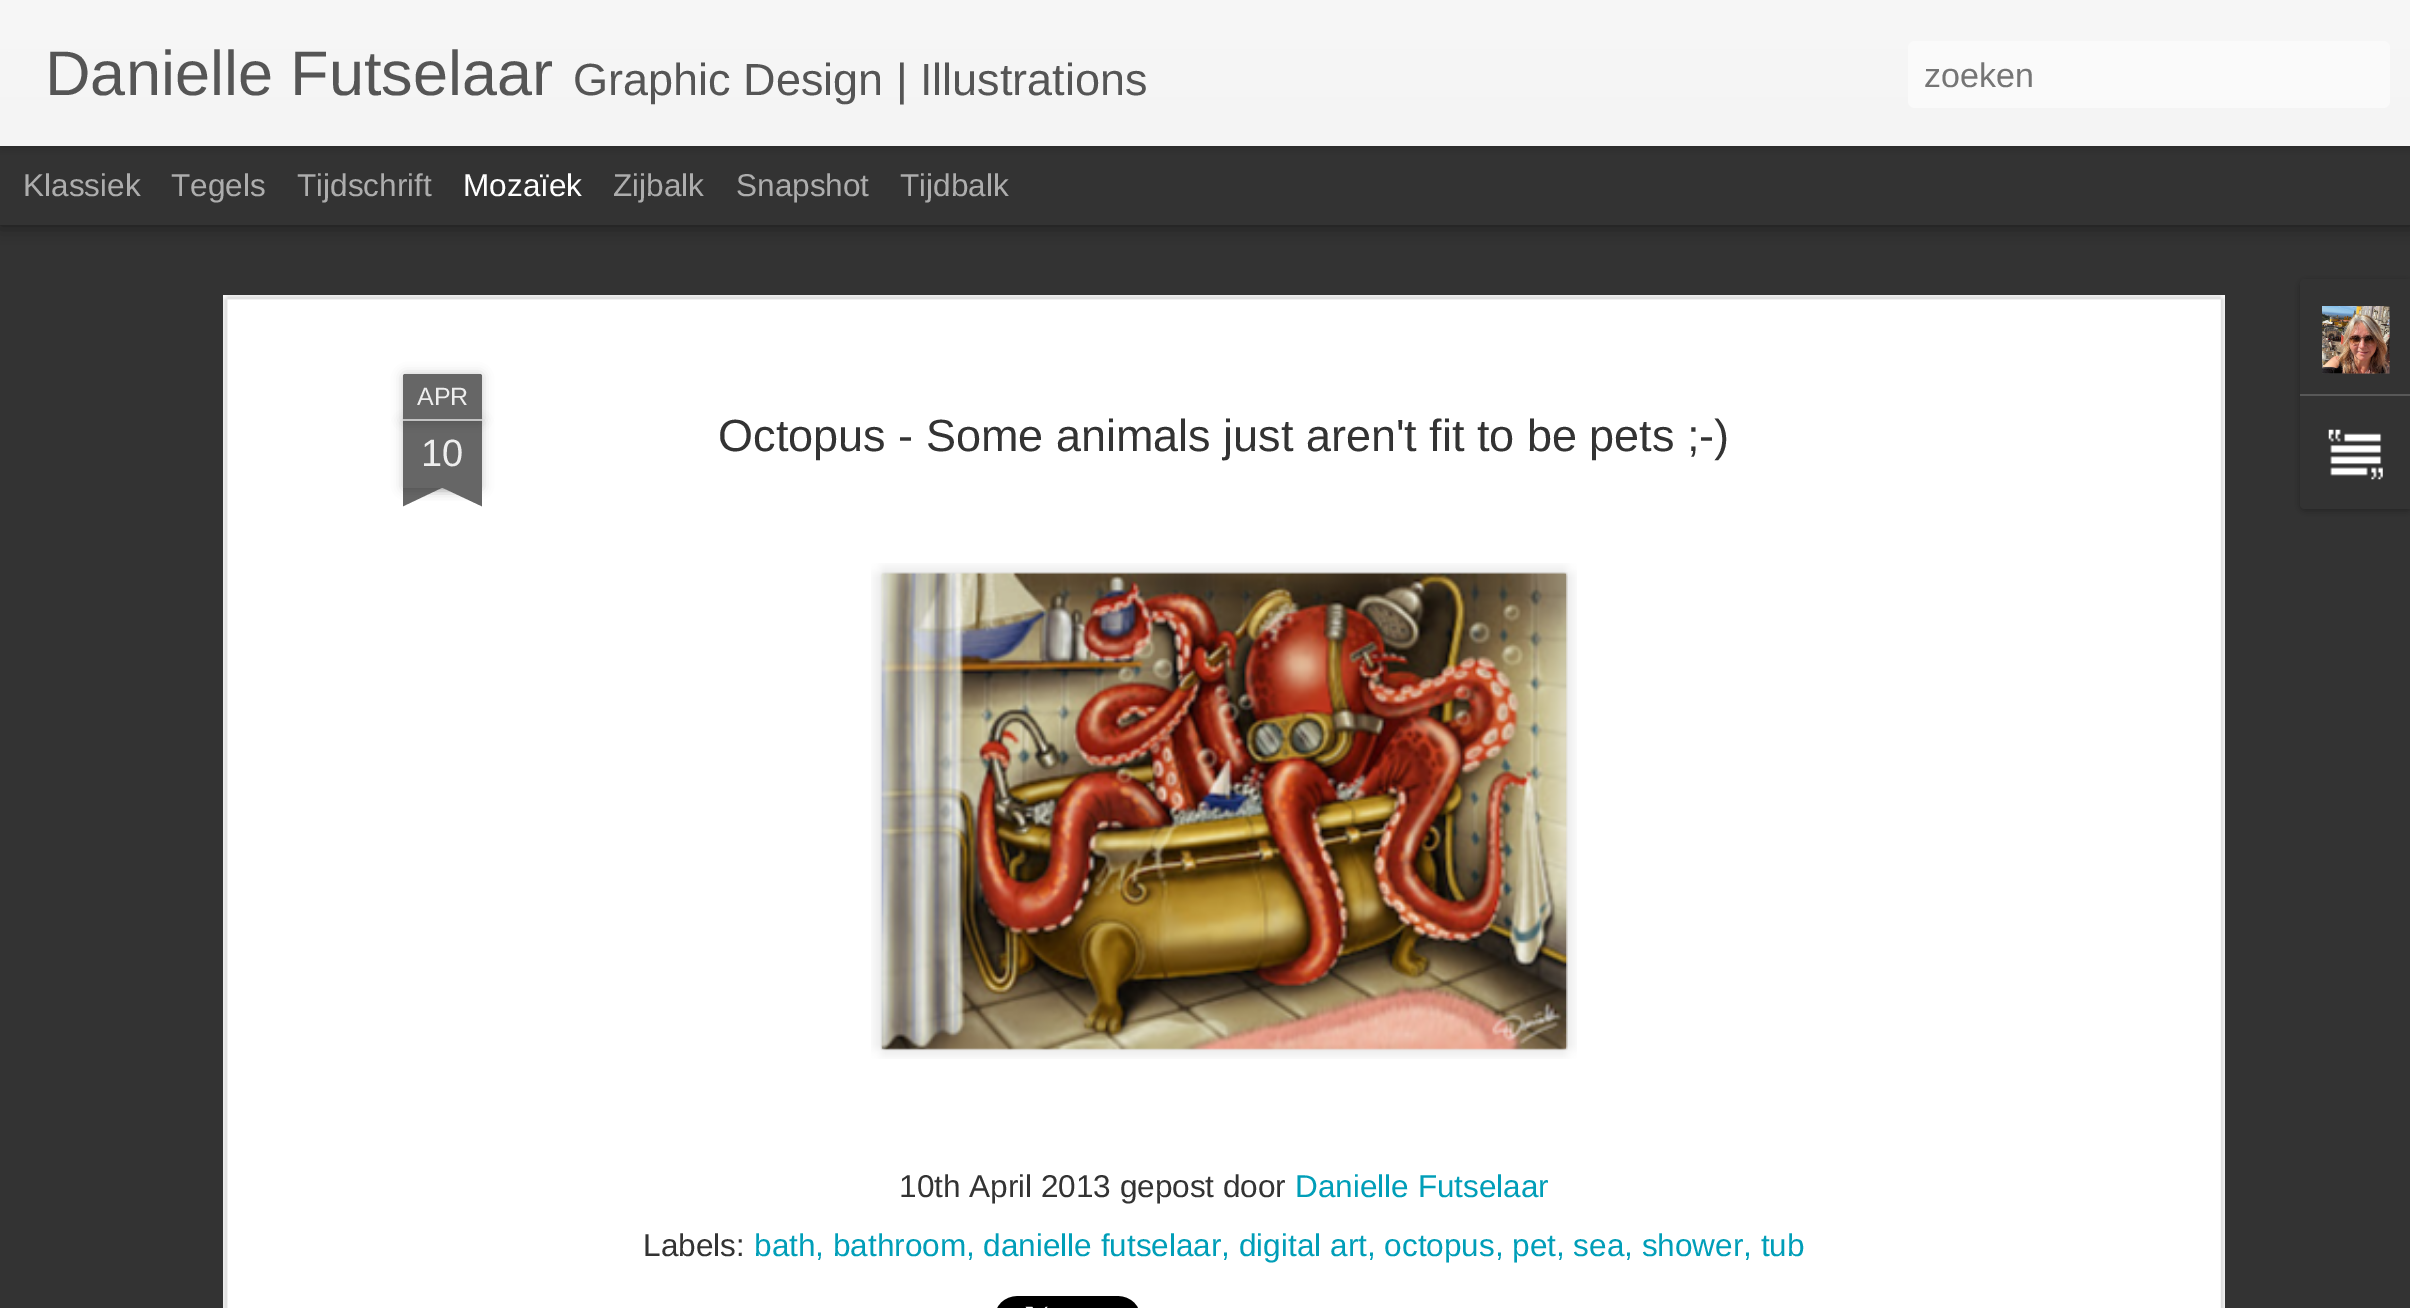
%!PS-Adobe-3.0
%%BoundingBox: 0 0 2410 1308
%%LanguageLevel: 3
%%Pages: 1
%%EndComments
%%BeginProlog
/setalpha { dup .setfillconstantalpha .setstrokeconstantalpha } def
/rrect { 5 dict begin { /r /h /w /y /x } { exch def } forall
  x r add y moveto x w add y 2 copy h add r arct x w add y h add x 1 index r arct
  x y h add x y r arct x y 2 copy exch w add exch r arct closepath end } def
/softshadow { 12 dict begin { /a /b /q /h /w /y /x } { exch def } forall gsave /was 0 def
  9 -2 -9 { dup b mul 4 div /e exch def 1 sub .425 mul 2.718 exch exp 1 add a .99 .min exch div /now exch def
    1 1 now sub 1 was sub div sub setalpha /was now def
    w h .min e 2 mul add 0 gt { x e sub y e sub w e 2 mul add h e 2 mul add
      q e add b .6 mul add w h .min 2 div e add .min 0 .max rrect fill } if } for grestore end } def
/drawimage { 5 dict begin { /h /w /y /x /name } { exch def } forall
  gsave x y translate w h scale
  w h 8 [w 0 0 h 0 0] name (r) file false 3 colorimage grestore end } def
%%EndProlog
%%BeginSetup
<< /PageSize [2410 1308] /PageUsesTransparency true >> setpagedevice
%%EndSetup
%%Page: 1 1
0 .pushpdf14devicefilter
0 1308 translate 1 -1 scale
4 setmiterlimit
0.2 setgray
0 0 2410 1308 rectfill
0 setgray
0 146 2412 79 0 9 0.5 softshadow
0.2 setgray
0 146 2410 79 rectfill
0 setgray
0 0 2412 146 0 5.5 0.3 softshadow
gsave newpath 0 0 moveto 2410 0 lineto 2410 146 lineto 0 146 lineto closepath clip newpath
<< /ShadingType 2 /ColorSpace /DeviceRGB /Coords [0 0 0 146] /Extend [true true] /Function << /FunctionType 2 /Domain [0 1] /C0 [0.969 0.969 0.969] /C1 [0.957 0.957 0.957] /N 1 >> >> shfill grestore
0.98 setgray
1908 41 482 67 7 rrect fill
1 setgray
223 295 2002 1013 rectfill
(images/1.raw) 223 295 2002 1013 drawimage
0 setgray
403 421 79 67 0 5.5 0.2 softshadow
0.4 setgray
403 421 79 67 rectfill
0 setgray
403 374 79 47 2 5.5 0.2 softshadow
0.4 setgray
newpath 405 374 moveto 480 374 lineto 481 374 482 375 482 376 curveto 482 421 lineto 403 421 lineto 403 376 lineto 403 375 404 374 405 374 curveto closepath fill
0.761 setgray
403 419 79 2 rectfill
gsave
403 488 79 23 rectclip
0 setgray
383 466 112 22 0 5.5 0.2 softshadow
grestore
gsave
403 488 79 23 rectclip
0.4 setgray
newpath 383 491 moveto 485 443 lineto 494 463 lineto 393 511 lineto closepath fill
grestore
gsave
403 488 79 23 rectclip
0 setgray
389 466 113 22 0 5.5 0.2 softshadow
grestore
gsave
403 488 79 23 rectclip
0.4 setgray
newpath 399 443 moveto 501 491 lineto 492 511 lineto 390 463 lineto closepath fill
grestore
(images/2.raw) 871 563 706 496 drawimage
(images/3.raw) 880 572 688 479 drawimage
(images/4.raw) 997 1296 141 12 drawimage
0 setgray
2300 281 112 230 5 3.5 0.3 softshadow
0.2 setgray
newpath 2305 279 moveto 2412 279 lineto 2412 509 lineto 2305 509 lineto 2302 509 2300 507 2300 504 curveto 2300 284 lineto 2300 281 2302 279 2305 279 curveto closepath fill
(images/5.raw) 2322 306 68 68 drawimage
0.345 setgray
2300 394 110 2 rectfill
(images/6.raw) 2328 429 55 51 drawimage
/LiberationSans-Regular [63 0 0 -63 0 0] selectfont
0.333 setgray
45 95 moveto (Danielle Futselaar) show
/LiberationSans-Regular [45 0 0 -45 0 0] selectfont
573 95 moveto (Graphic Design | Illustrations) show
/LiberationSans-Regular [34 0 0 -34 0 0] selectfont
0.459 setgray
1924 87 moveto (zoeken) show
/LiberationSans-Regular [31.5 0 0 -31.5 0 0] selectfont
0.678 setgray
23 196 moveto (Klassiek) show
171 196 moveto (Tegels) show
297 196 moveto (Tijdschrift) show
1 setgray
463 196 moveto (Mozaïek) show
0.678 setgray
613 196 moveto (Zijbalk) show
736 196 moveto (Snapshot) show
900 196 moveto (Tijdbalk) show
/LiberationSans-Regular [25 0 0 -25 0 0] selectfont
0.933 setgray
417 405 moveto (APR) show
/LiberationSans-Regular [38 0 0 -38 0 0] selectfont
421 466 moveto (10) show
/LiberationSans-Regular [45 0 0 -45 0 0] selectfont
0.2 setgray
718 451 moveto (Octopus - Some animals just aren't fit to be pets ;-\)) show
/LiberationSans-Regular [31.5 0 0 -31.5 0 0] selectfont
899 1197 moveto (10th April 2013 gepost door) show
0 0.62 0.722 setrgbcolor
1295 1197 moveto (Danielle Futselaar) show
0.2 setgray
643 1256 moveto (Labels:) show
0 0.62 0.722 setrgbcolor
754 1256 moveto (bath, bathroom, danielle futselaar, digital art, octopus, pet, sea, shower, tub) show
.poppdf14devicefilter showpage
%%EOF
